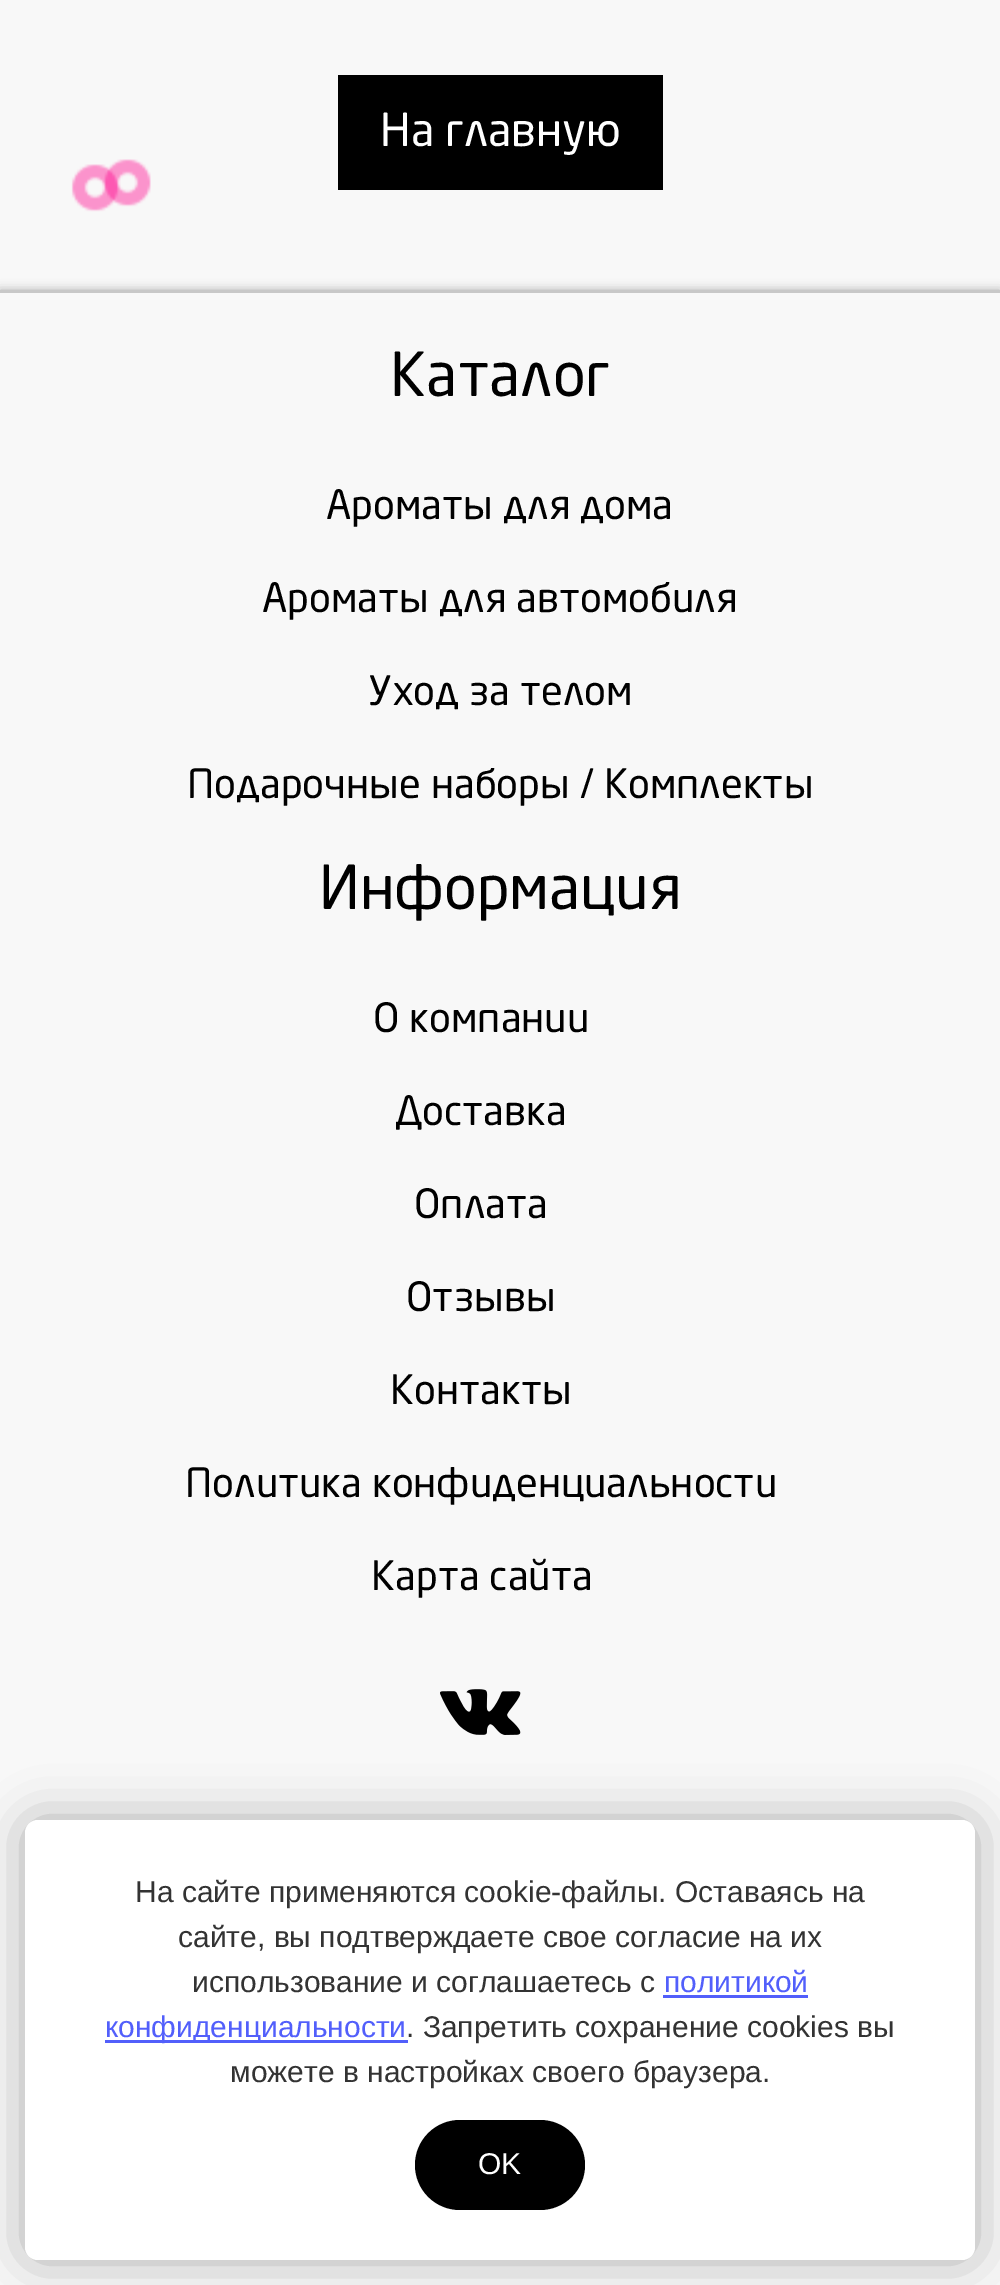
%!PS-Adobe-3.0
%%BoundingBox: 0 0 1000 2285
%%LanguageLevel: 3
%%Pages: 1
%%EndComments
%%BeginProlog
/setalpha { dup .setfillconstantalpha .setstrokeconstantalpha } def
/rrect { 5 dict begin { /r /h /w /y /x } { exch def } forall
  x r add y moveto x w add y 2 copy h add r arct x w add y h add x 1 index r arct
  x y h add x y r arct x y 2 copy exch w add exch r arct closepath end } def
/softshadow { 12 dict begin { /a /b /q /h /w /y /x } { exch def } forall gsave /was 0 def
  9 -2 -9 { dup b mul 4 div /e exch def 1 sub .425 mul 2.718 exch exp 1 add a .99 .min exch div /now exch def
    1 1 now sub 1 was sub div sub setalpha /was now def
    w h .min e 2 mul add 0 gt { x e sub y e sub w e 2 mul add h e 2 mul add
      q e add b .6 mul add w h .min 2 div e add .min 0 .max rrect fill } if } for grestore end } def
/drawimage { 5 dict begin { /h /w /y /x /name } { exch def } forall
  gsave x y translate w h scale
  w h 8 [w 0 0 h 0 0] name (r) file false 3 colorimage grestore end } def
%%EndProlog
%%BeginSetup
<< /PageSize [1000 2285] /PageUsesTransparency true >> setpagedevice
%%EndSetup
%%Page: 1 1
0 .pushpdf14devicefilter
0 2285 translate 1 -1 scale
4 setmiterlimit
0.973 setgray
0 0 1000 2285 rectfill
0 setgray
338 75 325 115 rectfill
0 290 1000 1995 0 5 0.3 softshadow
0.973 setgray
0 293 1000 1992 rectfill
0.784 setgray
0 290 1000 3 rectfill
(images/1.raw) 440 1689 81 46 drawimage
0 setgray
25 1820 950 440 13 25 0.3 softshadow
1 setgray
25 1820 950 440 13 rrect fill
0.322 0.373 0.984 setrgbcolor
663 1995 145 3 rectfill
105 2040 303 3 rectfill
0 setgray
415 2120 170 90 45 rrect fill
(images/2.raw) 71 164 48 48 drawimage
(images/3.raw) 104 159 47 48 drawimage
/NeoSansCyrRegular-Regular [45 0 0 -45 0 0] selectfont
1 setgray
380 146 moveto (На главную) show
/NeoSansCyrRegular-Regular [60 0 0 -60 0 0] selectfont
0 setgray
390 396 moveto (Каталог) show
/NeoSansCyrRegular-Regular [40 0 0 -40 0 0] selectfont
326 519 moveto (Ароматы для дома) show
262 612 moveto (Ароматы для автомобиля) show
368 705 moveto (Уход за телом) show
187 798 moveto (Подарочные наборы / Комплекты) show
/NeoSansCyrRegular-Regular [60 0 0 -60 0 0] selectfont
319 909 moveto (Информация) show
/NeoSansCyrRegular-Regular [40 0 0 -40 0 0] selectfont
373 1032 moveto (О компании) show
395 1125 moveto (Доставка) show
414 1218 moveto (Оплата) show
406 1311 moveto (Отзывы) show
390 1404 moveto (Контакты) show
185 1497 moveto (Политика конфиденциальности) show
371 1590 moveto (Карта сайта) show
/LiberationSans-Regular [30 0 0 -30 0 0] selectfont
0.2 setgray
135 1902 moveto (На сайте применяются cookie-файлы. Оставаясь на) show
178 1947 moveto (сайте, вы подтверждаете свое согласие на их) show
192 1992 moveto (использование и соглашаетесь с) show
0.322 0.373 0.984 setrgbcolor
664 1992 moveto (политикой) show
105 2037 moveto (конфиденциальности) show
0.2 setgray
406 2037 moveto (. Запретить сохранение cookies вы) show
230 2082 moveto (можете в настройках своего браузера.) show
1 setgray
478 2174 moveto (OK) show
.poppdf14devicefilter showpage
%%EOF
